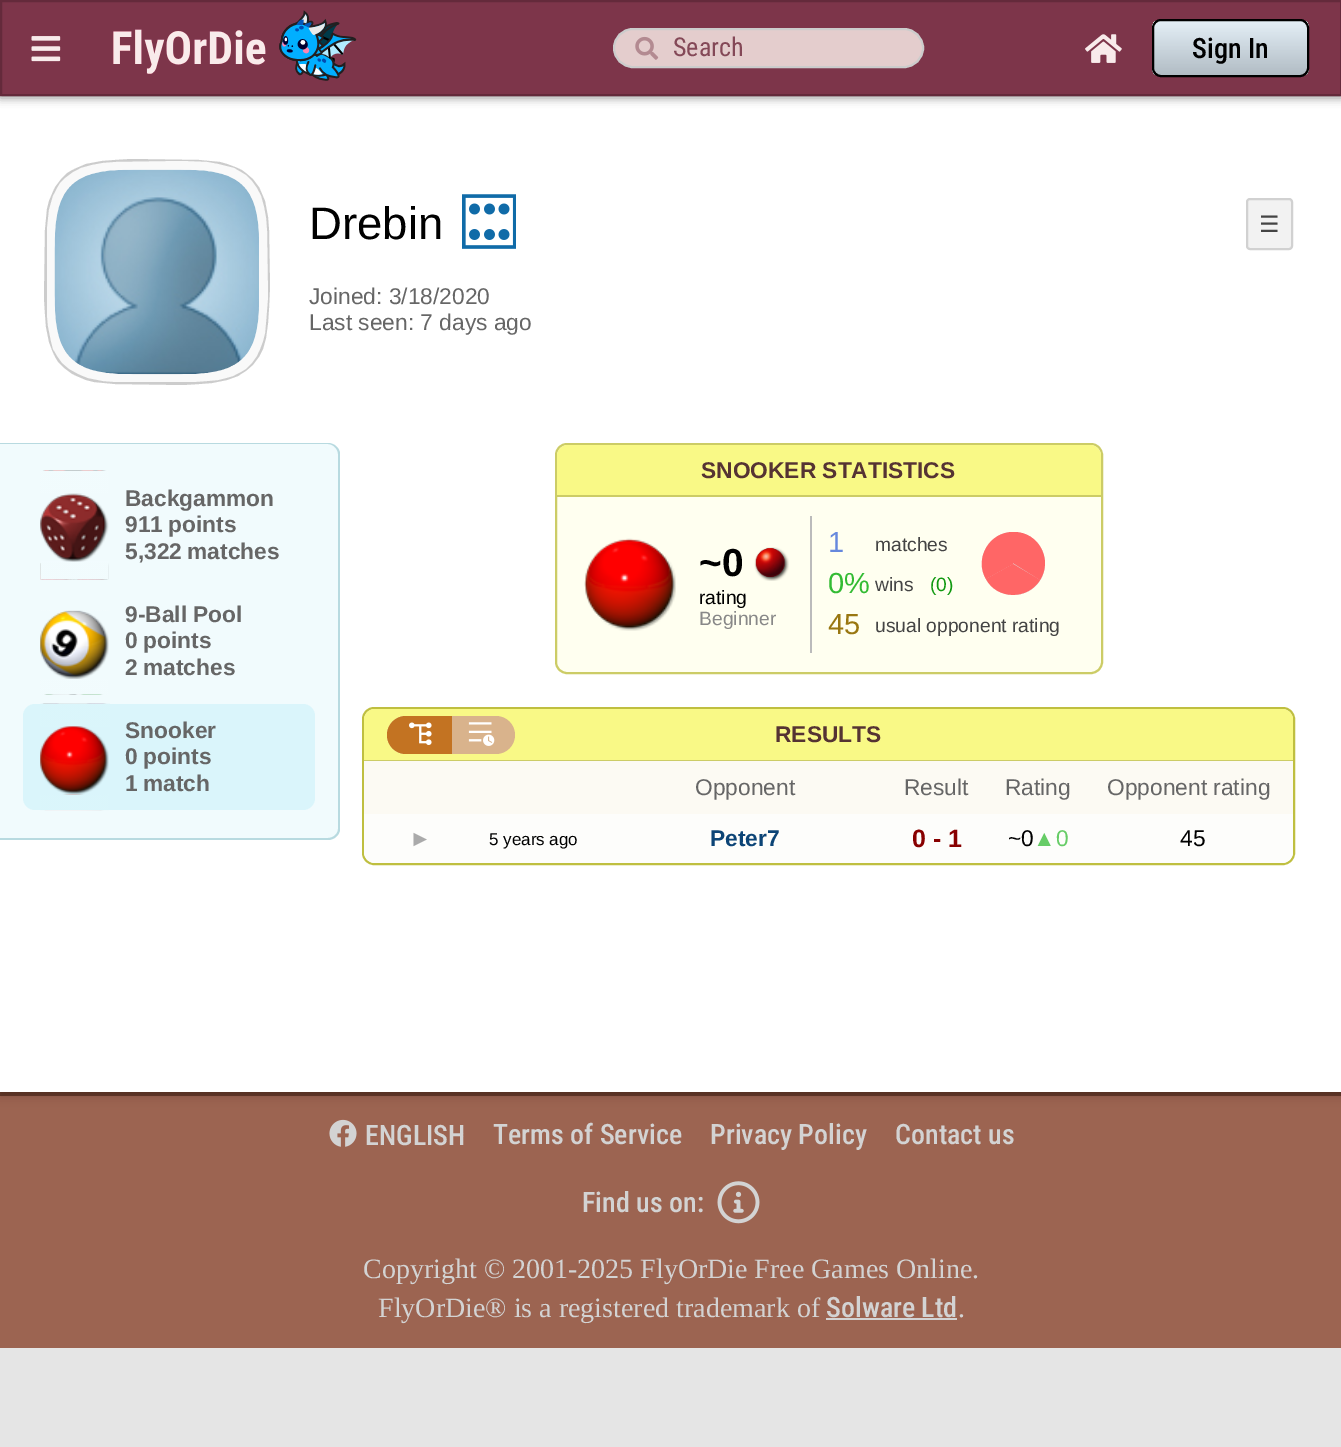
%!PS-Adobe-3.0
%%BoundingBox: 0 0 1341 1447
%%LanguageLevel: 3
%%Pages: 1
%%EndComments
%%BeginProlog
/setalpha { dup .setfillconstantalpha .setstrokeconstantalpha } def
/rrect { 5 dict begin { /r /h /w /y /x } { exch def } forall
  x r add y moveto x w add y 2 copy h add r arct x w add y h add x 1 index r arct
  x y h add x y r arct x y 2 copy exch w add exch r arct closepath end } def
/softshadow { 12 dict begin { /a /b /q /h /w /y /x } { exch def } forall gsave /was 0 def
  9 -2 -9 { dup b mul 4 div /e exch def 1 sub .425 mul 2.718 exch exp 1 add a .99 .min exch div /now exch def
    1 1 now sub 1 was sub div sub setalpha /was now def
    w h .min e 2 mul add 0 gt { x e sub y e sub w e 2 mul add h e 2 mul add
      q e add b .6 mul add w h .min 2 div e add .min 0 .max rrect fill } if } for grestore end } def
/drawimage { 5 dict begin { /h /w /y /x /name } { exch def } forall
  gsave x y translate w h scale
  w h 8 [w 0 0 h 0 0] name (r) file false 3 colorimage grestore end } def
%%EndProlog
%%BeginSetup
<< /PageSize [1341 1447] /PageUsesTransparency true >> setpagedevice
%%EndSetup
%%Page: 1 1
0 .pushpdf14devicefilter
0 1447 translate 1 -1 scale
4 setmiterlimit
1 setgray
0 0 1341 1447 rectfill
gsave newpath 0 1348 moveto 1341 1348 lineto 1341 1447 lineto 0 1447 lineto closepath clip newpath
<< /ShadingType 2 /ColorSpace /DeviceRGB /Coords [671 1447 671 0] /Extend [true true] /Function << /FunctionType 2 /Domain [0 1] /C0 [0.898 0.898 0.898] /C1 [0.941 0.941 0.941] /N 1 >> >> shfill grestore
0.612 0.392 0.318 setrgbcolor
0 1096 1341 252 rectfill
0.4 0.22 0.161 setrgbcolor
0 1092 1341 4 rectfill
0 setgray
0 98 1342 998 0 5 0.2 softshadow
1 setgray
0 96 1341 996 rectfill
0 setgray
0 2 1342 96 0 4.5 0.4 softshadow
0.49 0.208 0.29 setrgbcolor
newpath 1 1 moveto 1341 1 lineto 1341 95 lineto 1 95 lineto closepath gsave fill grestore
0.392 0.165 0.231 setrgbcolor
2 setlinewidth
stroke
(images/1.raw) 31 36 30 26 drawimage
(images/2.raw) 113 10 244 71 drawimage
0.894 0.804 0.804 setrgbcolor
614 29 309 38 19 rrect gsave fill grestore
0.8 setgray
stroke
(images/3.raw) 635 36 24 24 drawimage
(images/4.raw) 1085 34 37 29 drawimage
gsave
1152 19 157 58 9 rrect clip newpath
gsave newpath 1152 21 moveto 1309 21 lineto 1309 75 lineto 1152 75 lineto closepath clip newpath
<< /ShadingType 2 /ColorSpace /DeviceRGB /Coords [1230 21 1230 75] /Extend [true true] /Function << /FunctionType 2 /Domain [0 1] /C0 [1 1 1] /C1 [0.741 0.741 0.741] /N 1 >> >> shfill grestore
grestore
0.23 setalpha
0.541 0.725 0.859 setrgbcolor
1153 20 155 56 8 rrect fill
1 setalpha
0 setgray
1153 20 155 56 8 rrect stroke
0.8 setgray
newpath 270 287 moveto 269 230 lineto 268 217 lineto 265 201 lineto 262 194 lineto 259 187 lineto 253 179 lineto 246 173 lineto 242 170 lineto 235 167 lineto 227 164 lineto 220 162 lineto 199 160 lineto 131 159 lineto 115 160 lineto 102 161 lineto 86 164 lineto 79 167 lineto 72 170 lineto 67 173 lineto 61 179 lineto 55 187 lineto 52 194 lineto 49 201 lineto 47 209 lineto 45 230 lineto 44 298 lineto 45 314 lineto 46 327 lineto 49 342 lineto 52 350 lineto 55 357 lineto 58 362 lineto 64 368 lineto 72 374 lineto 79 377 lineto 86 380 lineto 94 382 lineto 115 384 lineto 183 385 lineto 199 384 lineto 212 383 lineto 227 380 lineto 238 376 lineto 246 371 lineto 253 365 lineto 259 357 lineto 263 349 lineto 266 338 lineto 268 323 lineto 269 308 lineto closepath fill
0.976 setgray
newpath 47 315 moveto 47 229 lineto 49 210 lineto 51 203 lineto 53 196 lineto 57 188 lineto 60 183 lineto 65 178 lineto 73 172 lineto 81 168 lineto 92 165 lineto 103 163 lineto 116 162 lineto 182 161 lineto 207 162 lineto 218 164 lineto 226 166 lineto 234 168 lineto 241 172 lineto 246 175 lineto 252 181 lineto 257 188 lineto 261 196 lineto 264 207 lineto 266 218 lineto 267 231 lineto 268 297 lineto 266 322 lineto 265 333 lineto 263 341 lineto 260 349 lineto 257 356 lineto 252 363 lineto 246 369 lineto 241 372 lineto 233 376 lineto 226 378 lineto 218 380 lineto 207 381 lineto 193 382 lineto 132 382 lineto 116 382 lineto 103 381 lineto 88 378 lineto 78 374 lineto 69 369 lineto 62 363 lineto 57 356 lineto 53 349 lineto 51 341 lineto 48 326 lineto closepath fill
(images/5.raw) 54 169 205 206 drawimage
(images/6.raw) 462 194 54 55 drawimage
0.949 setgray
1247 199 45 50 3 rrect gsave fill grestore
0.82 setgray
stroke
0.945 0.984 0.992 setrgbcolor
newpath 0 443 moveto 328 443 lineto 334.5 443 340 448.5 340 455 curveto 340 828 lineto 340 834.5 334.5 840 328 840 curveto 0 840 lineto closepath fill
0.722 0.855 0.878 setrgbcolor
newpath 0 443 moveto 328 443 lineto 334 443 340 448 340 454 curveto 340 829 lineto 340 835 334 840 328 840 curveto 0 840 lineto closepath 0 444 moveto 328 444 lineto 333 444 338 449 338 454 curveto 338 829 lineto 338 834 333 838 328 838 curveto 0 838 lineto closepath eofill
(images/7.raw) 40 470 69 110 drawimage
(images/8.raw) 40 610 69 85 drawimage
0.855 0.961 0.984 setrgbcolor
23 704 292 106 12 rrect fill
(images/9.raw) 40 703 70 108 drawimage
1 1 0.941 setrgbcolor
556 444 546 229 11 rrect gsave fill grestore
0.8 0.8 0.4 setrgbcolor
stroke
0.976 0.976 0.525 setrgbcolor
newpath 568 445 moveto 1090 445 lineto 1096 445 1101 450 1101 456 curveto 1101 497 lineto 557 497 lineto 557 456 lineto 557 450 562 445 568 445 curveto closepath fill
0.8 0.8 0.4 setrgbcolor
557 495 544 2 rectfill
(images/10.raw) 584 538 92 93 drawimage
(images/11.raw) 754 547 35 34 drawimage
0.733 setgray
810 516 2 137 rectfill
0.867 setgray
newpath 1013.5 563.5 31.5 0 360 arc closepath fill
1 0.4 0.4 setrgbcolor
newpath 1014 532 moveto 1039 532 1053 560 1040 580 curveto 1013 563 lineto 1012 532 lineto closepath fill
newpath 1013 564 moveto 1040 580 lineto 1028 600 997 600 986 579 curveto closepath fill
newpath 1013 532 moveto 1013 564 lineto 986 579 lineto 974 559 989 532 1013 532 curveto closepath fill
0.749 0.749 0.251 setrgbcolor
363 708 931 156 11 rrect stroke
0.976 0.976 0.525 setrgbcolor
newpath 375 709 moveto 1282 709 lineto 1288 709 1293 714 1293 720 curveto 1293 761 lineto 364 761 lineto 364 720 lineto 364 714 369 709 375 709 curveto closepath fill
0.8 0.8 0.4 setrgbcolor
364 760 929 1 rectfill
0.851 0.702 0.549 setrgbcolor
387 716 128 38 19 rrect fill
0.765 0.451 0.133 setrgbcolor
newpath 406 716 moveto 452 716 lineto 452 754 lineto 406 754 lineto 395.5 754 387 745.5 387 735 curveto 387 724.5 395.5 716 406 716 curveto closepath fill
(images/12.raw) 409 722 23 23 drawimage
(images/13.raw) 468 722 27 24 drawimage
0.988 0.98 0.953 setrgbcolor
364 761 929 53 rectfill
0.992 0.992 0.984 setrgbcolor
newpath 364 814 moveto 466 814 lineto 466 863 lineto 375 863 lineto 369 863 364 858 364 852 curveto closepath fill
466 814 626 49 rectfill
newpath 1092 814 moveto 1293 814 lineto 1293 852 lineto 1293 858 1288 863 1282 863 curveto 1092 863 lineto closepath fill
(images/14.raw) 329 1119 28 28 drawimage
(images/15.raw) 717 1181 43 43 drawimage
0.827 setgray
826 1318 131 2 rectfill
/RobotoCondensed-Regular [26 0 0 -26 0 0] selectfont
0.518 0.282 0.341 setrgbcolor
673 56 moveto (Search) show
/RobotoCondensed-Medium [28 0 0 -28 0 0] selectfont
0 setgray
1192 58 moveto (Sign In) show
/LiberationSans-Regular [45.5 0 0 -45.5 0 0] selectfont
309 239 moveto (Drebin) show
/DejaVuSans-Regular [22.75 0 0 -22.75 0 0] selectfont
0.267 setgray
1259 232 moveto (☰) show
/LiberationSans-Regular [22.75 0 0 -22.75 0 0] selectfont
0.4 setgray
309 304 moveto (Joined: 3/18/2020) show
309 330 moveto (Last seen: 7 days ago) show
/LiberationSans-Bold [22.75 0 0 -22.75 0 0] selectfont
125 506 moveto (Backgammon) show
125 532 moveto -1 0 32 (911 points) widthshow
125 559 moveto -1 0 32 (5,322 matches) widthshow
125 622 moveto (9-Ball Pool) show
125 648 moveto -1 0 32 (0 points) widthshow
125 675 moveto -1 0 32 (2 matches) widthshow
125 738 moveto (Snooker) show
125 764 moveto -1 0 32 (0 points) widthshow
125 791 moveto -1 0 32 (1 match) widthshow
0.333 0.2 0.2 setrgbcolor
701 478 moveto (SNOOKER STATISTICS) show
/LiberationSans-Bold [39 0 0 -39 0 0] selectfont
0 setgray
699 576 moveto (~0) show
/LiberationSans-Regular [19.25 0 0 -19.25 0 0] selectfont
699 604 moveto (rating) show
0.533 setgray
699 625 moveto (Beginner) show
/LiberationSans-Regular [29 0 0 -29 0 0] selectfont
0.4 0.533 0.867 setrgbcolor
828 552 moveto (1) show
/LiberationSans-Regular [19.25 0 0 -19.25 0 0] selectfont
0.267 setgray
875 551 moveto (matches) show
/LiberationSans-Regular [29 0 0 -29 0 0] selectfont
0.2 0.733 0.2 setrgbcolor
828 593 moveto (0%) show
/LiberationSans-Regular [19.25 0 0 -19.25 0 0] selectfont
0.267 setgray
875 591 moveto (wins) show
0.067 0.6 0.067 setrgbcolor
930 591 moveto (\(0\)) show
/LiberationSans-Regular [29 0 0 -29 0 0] selectfont
0.6 0.467 0.067 setrgbcolor
828 634 moveto (45) show
/LiberationSans-Regular [19.25 0 0 -19.25 0 0] selectfont
0.267 setgray
875 632 moveto (usual opponent rating) show
/LiberationSans-Bold [22.75 0 0 -22.75 0 0] selectfont
0.333 0.2 0.2 setrgbcolor
775 742 moveto (RESULTS) show
/LiberationSans-Regular [22.75 0 0 -22.75 0 0] selectfont
0.4 setgray
695 795 moveto (Opponent) show
904 795 moveto (Result) show
1005 795 moveto (Rating) show
1107 795 moveto (Opponent rating) show
0.667 setgray
409 846 moveto (►) show
/LiberationSans-Regular [17 0 0 -17 0 0] selectfont
0 setgray
489 845 moveto (5 years ago) show
/LiberationSans-Bold [22.75 0 0 -22.75 0 0] selectfont
0.047 0.267 0.463 setrgbcolor
710 846 moveto (Peter7) show
/LiberationSans-Bold [25 0 0 -25 0 0] selectfont
0.533 0 0 setrgbcolor
912 847 moveto (0 - 1) show
/LiberationSans-Regular [22.75 0 0 -22.75 0 0] selectfont
0 setgray
1008 846 moveto (~0) show
0.4 0.8 0.4 setrgbcolor
1033 846 moveto (▲0) show
0 setgray
1180 846 moveto (45) show
/RobotoCondensed-Medium [28 0 0 -28 0 0] selectfont
0.827 setgray
365 1145 moveto (ENGLISH) show
493 1144 moveto (Terms of Service) show
710 1144 moveto (Privacy Policy) show
895 1144 moveto (Contact us) show
582 1212 moveto (Find us on:) show
/LiberationSerif-Regular [28 0 0 -28 0 0] selectfont
363 1278 moveto (Copyright © 2001-2025 FlyOrDie Free Games Online.) show
378 1317 moveto (FlyOrDie® is a registered trademark of) show
/RobotoCondensed-Medium [28 0 0 -28 0 0] selectfont
826 1317 moveto (Solware Ltd) show
/LiberationSerif-Regular [28 0 0 -28 0 0] selectfont
958 1317 moveto (.) show
.poppdf14devicefilter showpage
%%EOF
